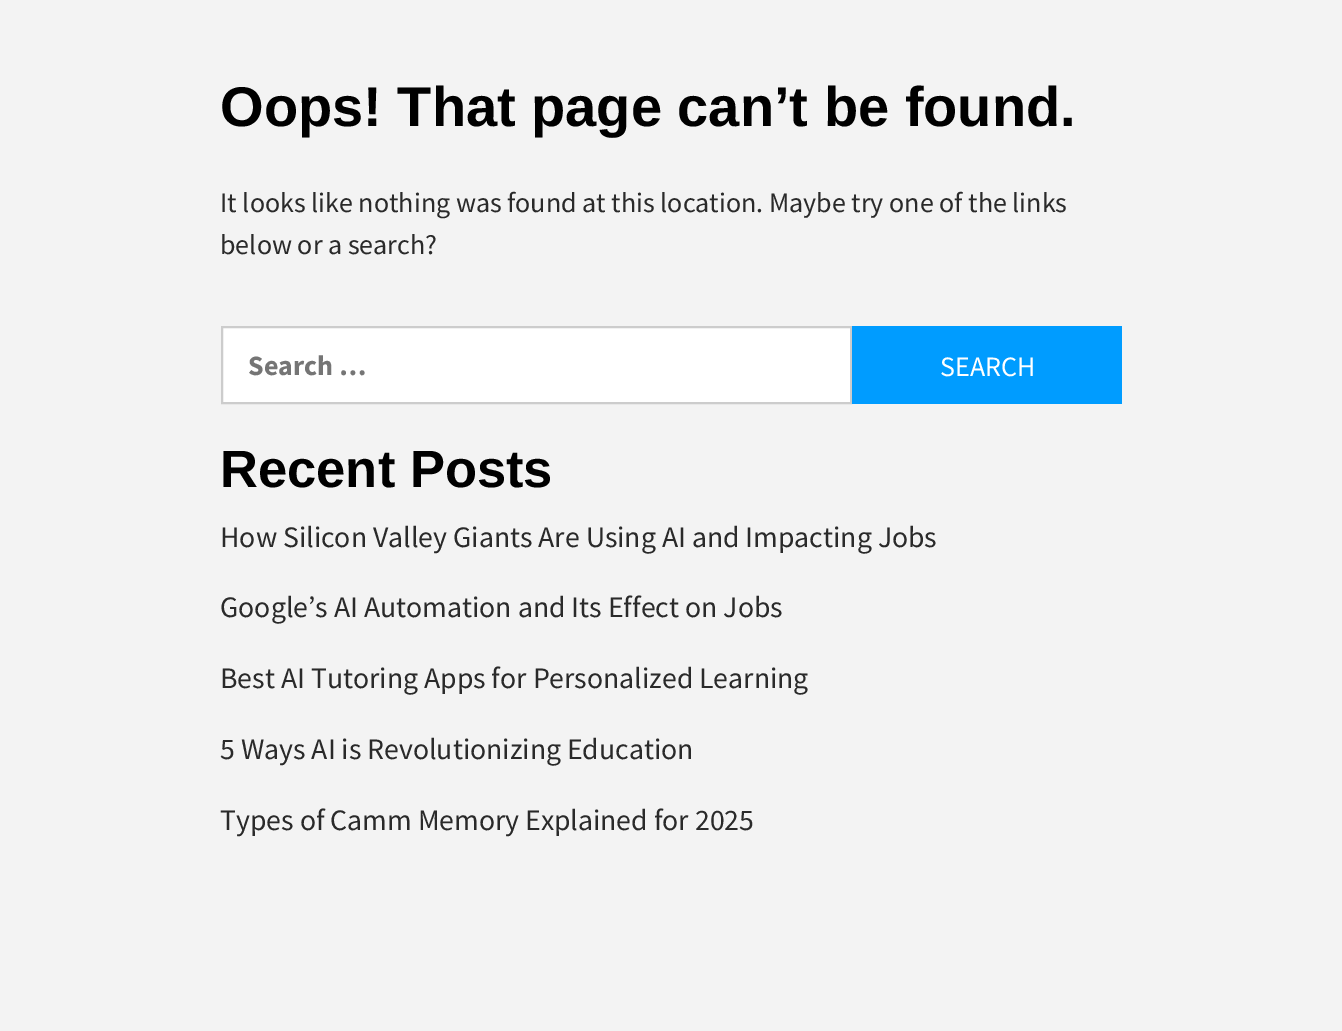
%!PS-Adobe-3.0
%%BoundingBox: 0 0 1342 1031
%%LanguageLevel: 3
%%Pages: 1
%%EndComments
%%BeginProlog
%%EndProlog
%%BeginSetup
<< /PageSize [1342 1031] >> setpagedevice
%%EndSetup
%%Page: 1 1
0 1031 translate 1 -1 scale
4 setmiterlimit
0.953 setgray
0 0 1342 1031 rectfill
1 setgray
newpath 222 327 moveto 851 327 lineto 851 403 lineto 222 403 lineto closepath gsave fill grestore
0.8 setgray
2 setlinewidth
stroke
0 0.612 1 setrgbcolor
852 326 270 78 rectfill
/LiberationSans-Bold [56 0 0 -56 0 0] selectfont
0 setgray
220 126 moveto (Oops! That page can’t be found.) show
/SourceSansPro-Regular [28 0 0 -28 0 0] selectfont
0.165 setgray
220 212 moveto (It looks like nothing was found at this location. Maybe try one of the links) show
220 254 moveto (below or a search?) show
/SourceSansPro-Bold [28 0 0 -28 0 0] selectfont
0.459 setgray
248 375 moveto (Search …) show
/SourceSansPro-Regular [28 0 0 -28 0 0] selectfont
1 setgray
940 376 moveto (SEARCH) show
/LiberationSans-Bold [52.5 0 0 -52.5 0 0] selectfont
0 setgray
220 487 moveto (Recent Posts) show
/SourceSansPro-Regular [29.75 0 0 -29.75 0 0] selectfont
0.165 setgray
220 547 moveto (How Silicon Valley Giants Are Using AI and Impacting Jobs) show
220 617 moveto (Google’s AI Automation and Its Effect on Jobs) show
220 688 moveto (Best AI Tutoring Apps for Personalized Learning) show
220 759 moveto (5 Ways AI is Revolutionizing Education) show
220 830 moveto (Types of Camm Memory Explained for 2025) show
showpage
%%EOF
